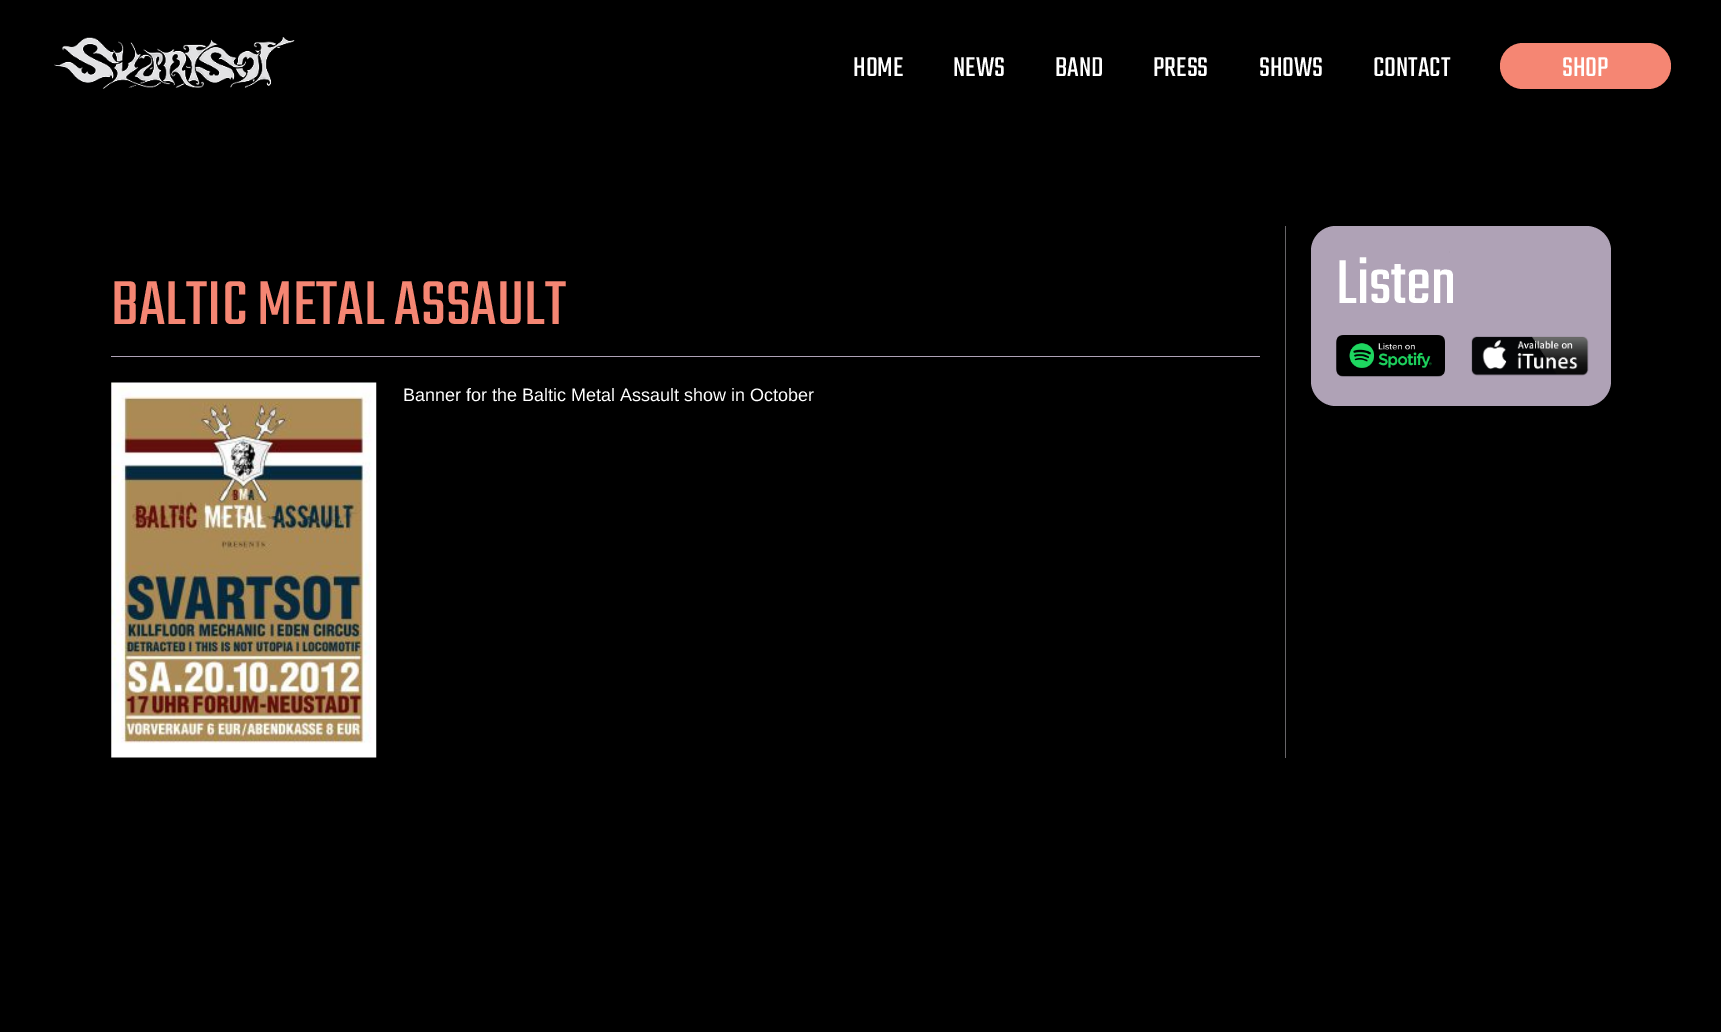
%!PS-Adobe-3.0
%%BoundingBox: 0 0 1721 1032
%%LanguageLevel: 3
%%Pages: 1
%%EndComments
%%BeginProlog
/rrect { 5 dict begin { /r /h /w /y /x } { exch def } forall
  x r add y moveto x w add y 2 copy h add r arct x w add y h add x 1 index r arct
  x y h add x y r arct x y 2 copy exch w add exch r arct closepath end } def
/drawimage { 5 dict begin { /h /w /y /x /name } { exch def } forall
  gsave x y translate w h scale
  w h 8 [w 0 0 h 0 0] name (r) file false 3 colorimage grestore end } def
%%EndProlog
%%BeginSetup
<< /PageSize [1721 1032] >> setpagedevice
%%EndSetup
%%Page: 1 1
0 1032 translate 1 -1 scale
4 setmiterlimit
0 setgray
0 0 1721 1032 rectfill
(images/1.raw) 54 37 241 52 drawimage
0.961 0.525 0.451 setrgbcolor
1500 43 171 46 23 rrect fill
0.686 0.635 0.714 setrgbcolor
1311 226 300 180 25 rrect fill
0.675 0.624 0.698 setrgbcolor
1449 251 1 2 rectfill
0.686 0.635 0.714 setrgbcolor
111 356 1149 1 rectfill
(images/2.raw) 111 382 266 376 drawimage
0.404 0.396 0.408 setrgbcolor
1285 226 1 532 rectfill
(images/3.raw) 1336 335 109 42 drawimage
(images/4.raw) 1471 336 118 40 drawimage
/Teko-Regular [30 0 0 -30 0 0] selectfont
1 setgray
853 76 moveto (HOME) show
953 76 moveto (NEWS) show
1055 76 moveto (BAND) show
1153 76 moveto (PRESS) show
1259 76 moveto (SHOWS) show
1373 76 moveto (CONTACT) show
1562 76 moveto (SHOP) show
/Teko-Regular [68.5 0 0 -68.5 0 0] selectfont
0.961 0.525 0.451 setrgbcolor
111 324 moveto (BALTIC METAL ASSAULT) show
/LiberationSans-Regular [18 0 0 -18 0 0] selectfont
1 setgray
403 401 moveto (Banner for the Baltic Metal Assault show in October) show
/Teko-Regular [68.5 0 0 -68.5 0 0] selectfont
1336 303 moveto (Listen) show
showpage
%%EOF
